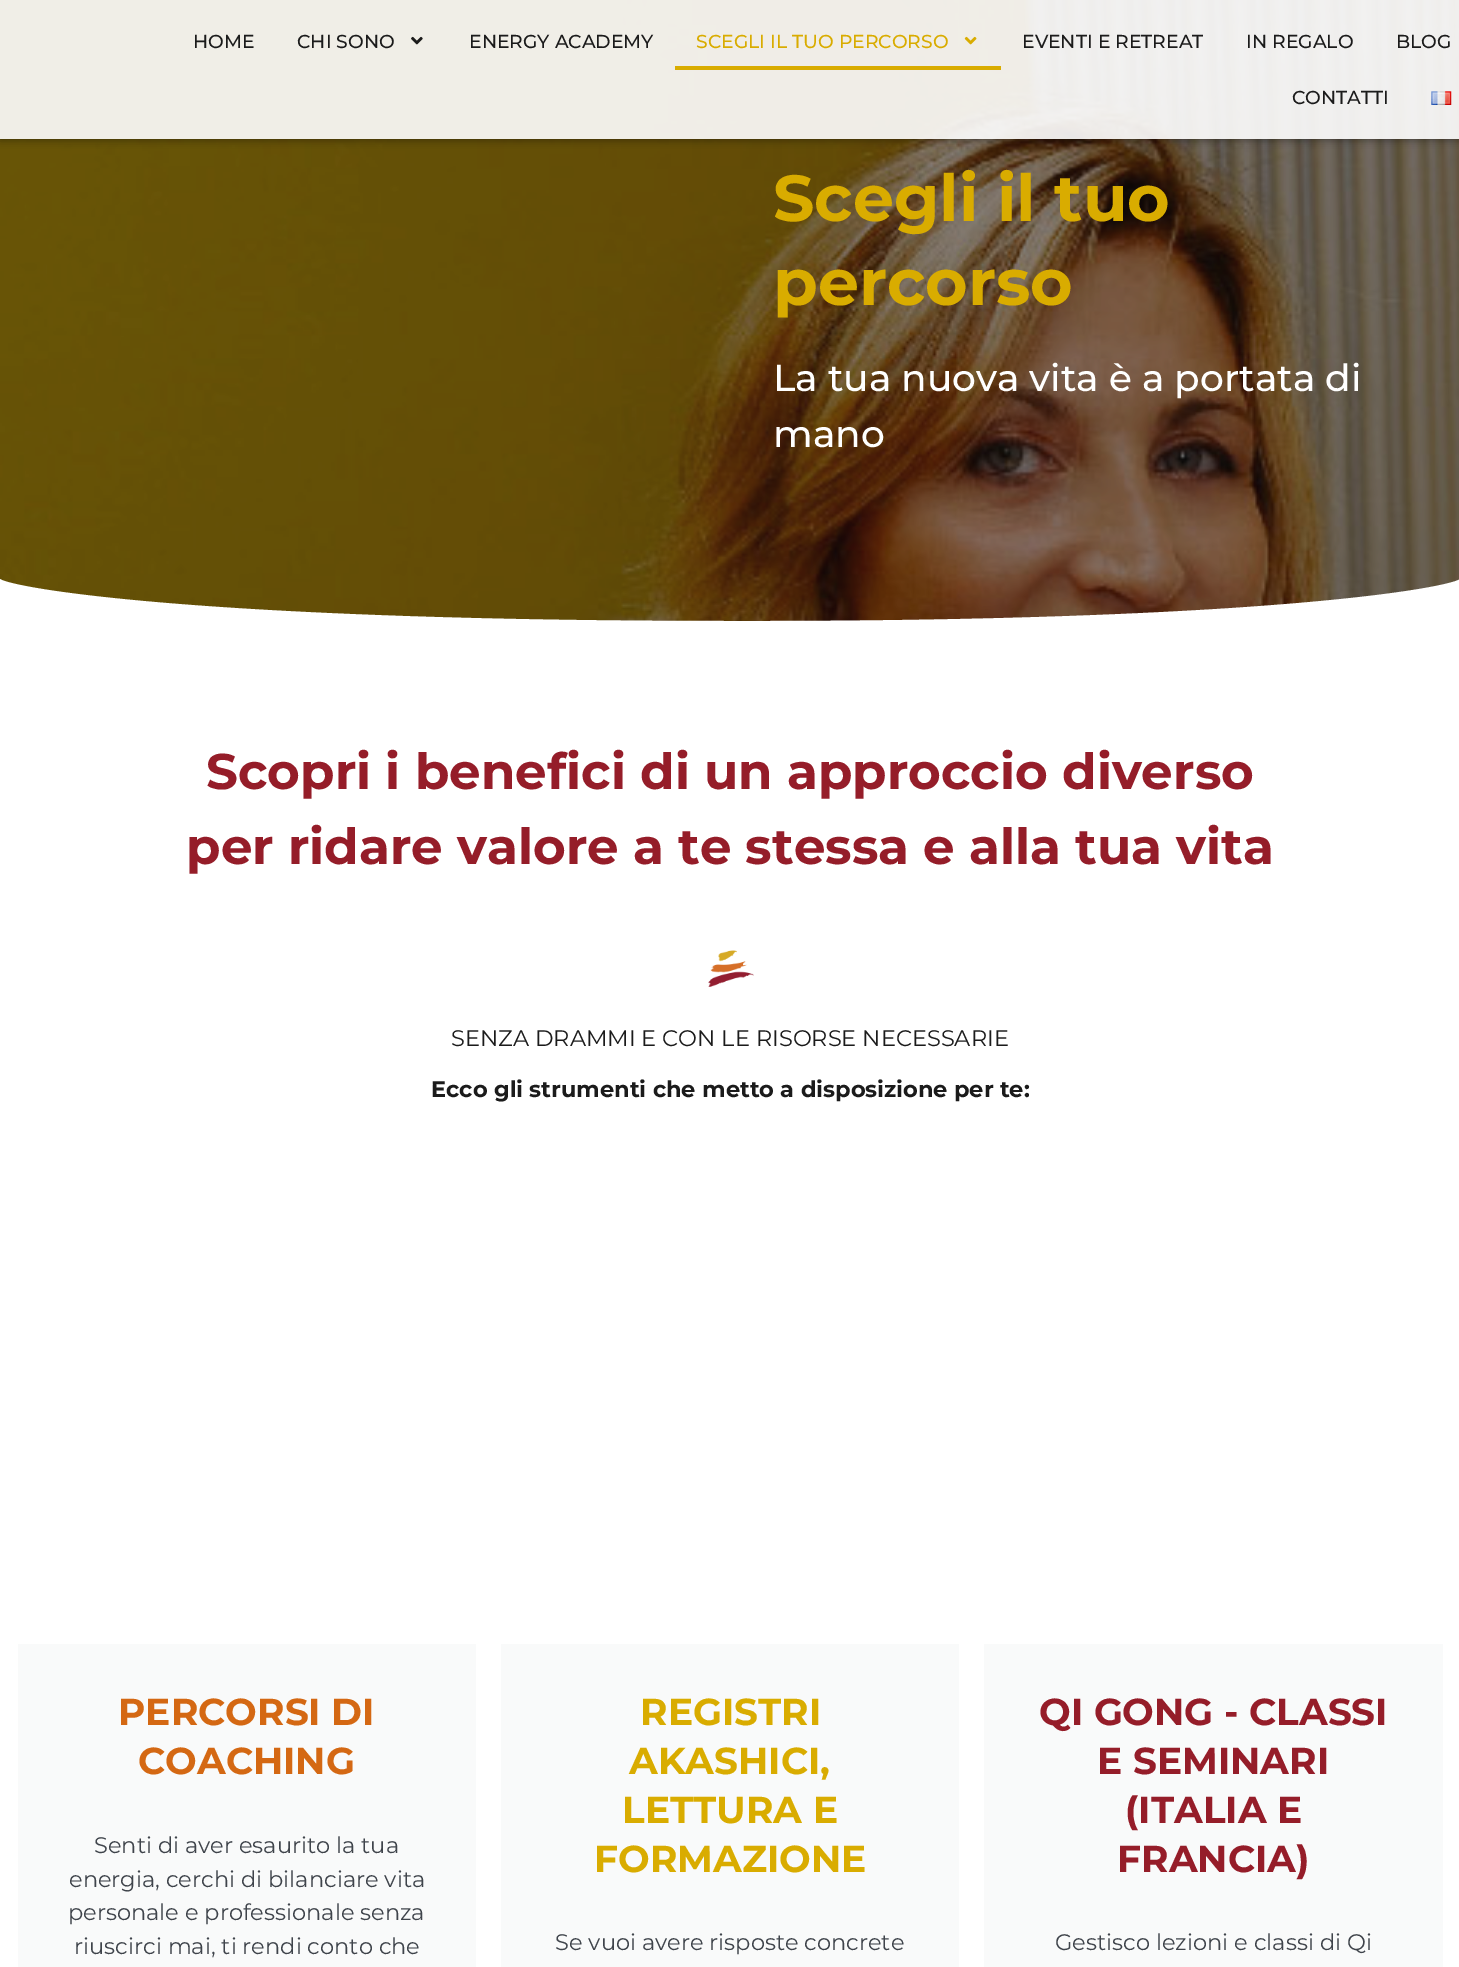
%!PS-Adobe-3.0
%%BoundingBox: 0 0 1459 1967
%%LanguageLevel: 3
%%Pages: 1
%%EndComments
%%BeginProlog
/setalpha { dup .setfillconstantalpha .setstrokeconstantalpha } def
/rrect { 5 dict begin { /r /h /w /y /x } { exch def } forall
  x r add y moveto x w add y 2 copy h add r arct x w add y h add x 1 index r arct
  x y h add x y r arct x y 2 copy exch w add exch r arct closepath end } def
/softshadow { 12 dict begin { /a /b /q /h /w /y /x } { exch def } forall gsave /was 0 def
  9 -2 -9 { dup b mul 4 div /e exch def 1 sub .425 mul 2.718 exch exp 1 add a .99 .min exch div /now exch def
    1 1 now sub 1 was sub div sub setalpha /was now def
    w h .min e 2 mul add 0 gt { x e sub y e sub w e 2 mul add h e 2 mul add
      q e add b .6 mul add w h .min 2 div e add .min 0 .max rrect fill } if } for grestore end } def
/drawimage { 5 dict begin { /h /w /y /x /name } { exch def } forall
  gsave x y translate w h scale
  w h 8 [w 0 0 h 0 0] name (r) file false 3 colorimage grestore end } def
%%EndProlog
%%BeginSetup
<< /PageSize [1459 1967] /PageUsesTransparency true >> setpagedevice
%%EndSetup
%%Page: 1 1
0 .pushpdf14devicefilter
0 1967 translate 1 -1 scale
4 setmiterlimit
1 setgray
0 0 1459 1967 rectfill
(images/4.raw) 0 0 1459 621 drawimage
gsave
newpath 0 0 moveto 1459 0 lineto 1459 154 lineto 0 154 lineto closepath 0 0 moveto 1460 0 lineto 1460 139 lineto 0 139 lineto closepath eoclip newpath
0 setgray
0 0 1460 139 0 4.5 0.5 softshadow
grestore
0.9 setalpha
0 0 1459 139 rectfill
1 setalpha
(images/1.raw) 411 36 12 9 drawimage
(images/2.raw) 964 36 13 9 drawimage
0.851 0.675 0 setrgbcolor
675 66 326 4 rectfill
(images/3.raw) 1431 91 21 14 drawimage
1 setgray
newpath 730 621 moveto 184 621 0 586 -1 578 curveto -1 622 lineto 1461 622 lineto 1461 578 lineto 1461 586 1276 622 730 621 curveto closepath fill
(images/5.raw) 708 950 46 37 drawimage
0.976 0.98 0.98 setrgbcolor
18 1644 458 323 rectfill
501 1644 458 323 rectfill
984 1644 459 323 rectfill
/Montserrat-Medium [18.75 0 0 -18.75 0 0] selectfont
0.106 setgray
193 48 moveto (HOME) show
297 48 moveto (CHI SONO) show
469 48 moveto (ENERGY ACADEMY) show
0.851 0.675 0 setrgbcolor
696 48 moveto (SCEGLI IL TUO PERCORSO) show
0.106 setgray
1022 48 moveto (EVENTI E RETREAT) show
1246 48 moveto (IN REGALO) show
1396 48 moveto (BLOG) show
1292 104 moveto (CONTATTI) show
/Montserrat-Bold [65 0 0 -65 0 0] selectfont
0.851 0.675 0 setrgbcolor
773 221 moveto (Scegli il tuo) show
773 305 moveto (percorso) show
/Montserrat-Medium [37.5 0 0 -37.5 0 0] selectfont
1 setgray
773 391 moveto (La tua nuova vita è a portata di) show
773 447 moveto (mano) show
/Montserrat-Bold [50 0 0 -50 0 0] selectfont
0.584 0.114 0.161 setrgbcolor
206 789 moveto (Scopri i benefici di un approccio diverso) show
186 864 moveto (per ridare valore a te stessa e alla tua vita) show
/Montserrat-Regular [22.5 0 0 -22.5 0 0] selectfont
0.106 setgray
451 1046 moveto (SENZA DRAMMI E CON LE RISORSE NECESSARIE) show
/Montserrat-Bold [22.5 0 0 -22.5 0 0] selectfont
431 1097 moveto (Ecco gli strumenti che metto a disposizione per te:) show
/Montserrat-Bold [37.5 0 0 -37.5 0 0] selectfont
0.831 0.408 0.075 setrgbcolor
118 1725 moveto (PERCORSI DI) show
138 1774 moveto (COACHING) show
/Montserrat-Regular [22.5 0 0 -22.5 0 0] selectfont
0.247 0.267 0.294 setrgbcolor
94 1853 moveto (Senti di aver esaurito la tua) show
69 1887 moveto (energia, cerchi di bilanciare vita) show
68 1920 moveto (personale e professionale senza) show
74 1954 moveto (riuscirci mai, ti rendi conto che) show
/Montserrat-Bold [37.5 0 0 -37.5 0 0] selectfont
0.851 0.675 0 setrgbcolor
640 1725 moveto (REGISTRI) show
629 1774 moveto (AKASHICI,) show
622 1823 moveto (LETTURA E) show
594 1872 moveto (FORMAZIONE) show
/Montserrat-Regular [22.5 0 0 -22.5 0 0] selectfont
0.247 0.267 0.294 setrgbcolor
555 1950 moveto (Se vuoi avere risposte concrete) show
/Montserrat-Bold [37.5 0 0 -37.5 0 0] selectfont
0.584 0.114 0.161 setrgbcolor
1039 1725 moveto (QI GONG - CLASSI) show
1097 1774 moveto (E SEMINARI) show
1125 1823 moveto (\(ITALIA E) show
1117 1872 moveto (FRANCIA\)) show
/Montserrat-Regular [22.5 0 0 -22.5 0 0] selectfont
0.247 0.267 0.294 setrgbcolor
1055 1950 moveto (Gestisco lezioni e classi di Qi) show
.poppdf14devicefilter showpage
%%EOF
